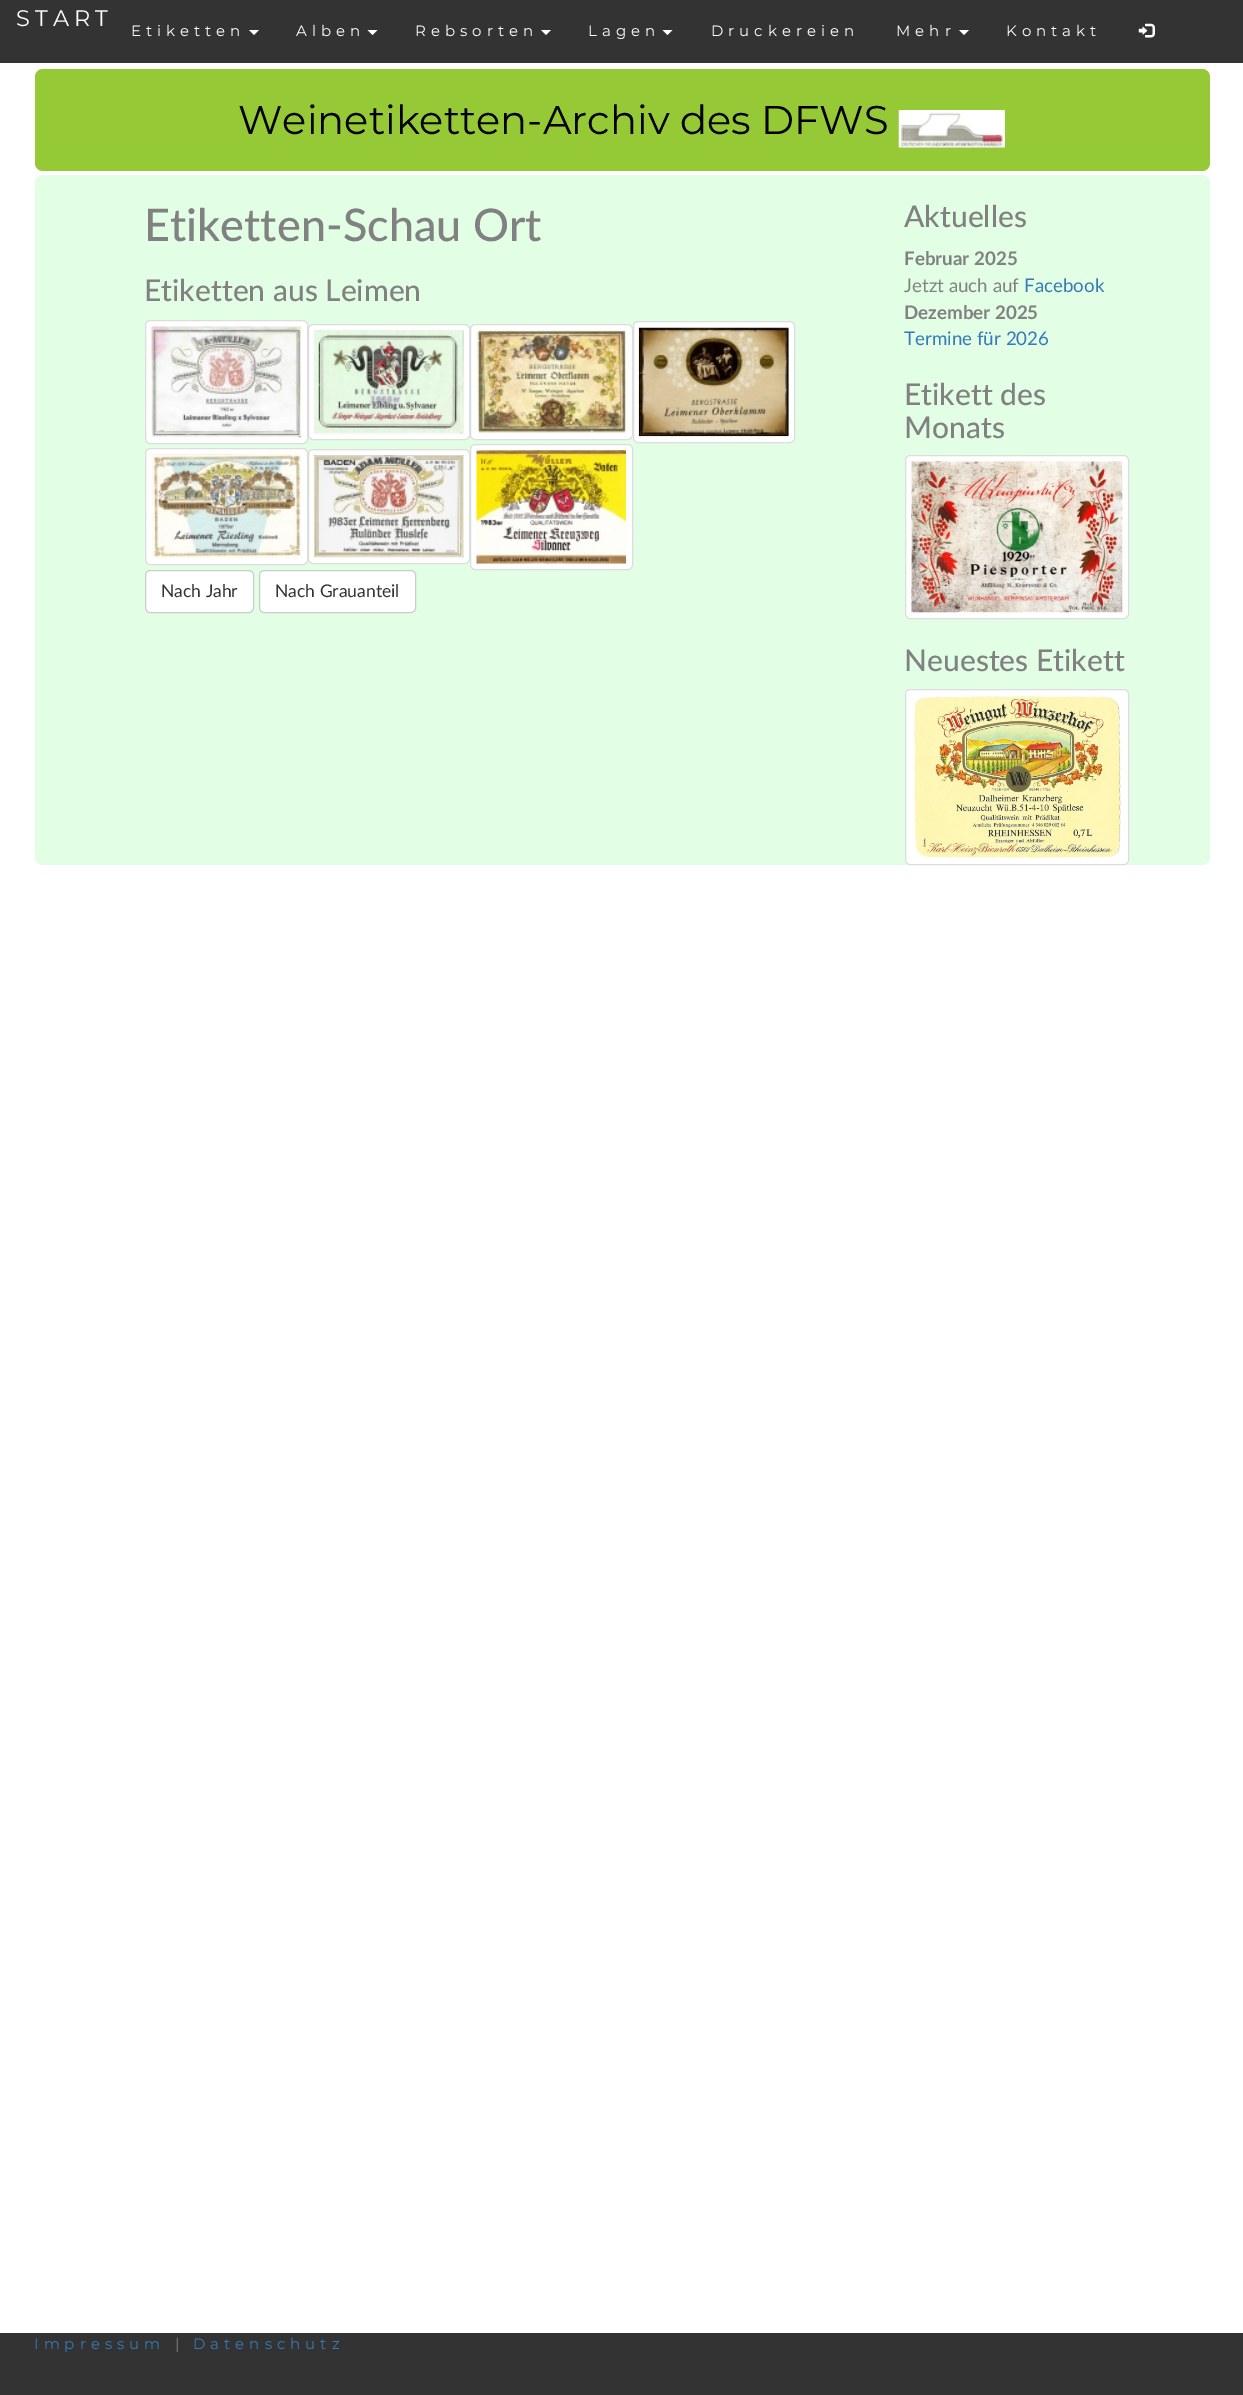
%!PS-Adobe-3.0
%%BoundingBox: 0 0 1243 2395
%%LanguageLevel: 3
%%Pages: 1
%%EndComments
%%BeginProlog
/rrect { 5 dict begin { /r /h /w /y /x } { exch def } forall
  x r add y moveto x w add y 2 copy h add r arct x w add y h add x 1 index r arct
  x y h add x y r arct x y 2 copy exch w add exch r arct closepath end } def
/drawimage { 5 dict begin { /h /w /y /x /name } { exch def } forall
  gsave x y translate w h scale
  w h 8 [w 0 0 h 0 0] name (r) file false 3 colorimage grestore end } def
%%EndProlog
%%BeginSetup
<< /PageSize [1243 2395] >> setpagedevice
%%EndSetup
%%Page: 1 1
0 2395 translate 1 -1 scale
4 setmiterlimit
1 setgray
0 0 1243 2395 rectfill
0.2 setgray
0 0 1243 63 rectfill
1 setgray
newpath 249 30 moveto 259 30 lineto 254 35 lineto closepath fill
newpath 367.5 30 moveto 377.5 30 lineto 372.5 35 lineto closepath fill
newpath 541 30 moveto 551 30 lineto 546 35 lineto closepath fill
newpath 662.5 30 moveto 672.5 30 lineto 667.5 35 lineto closepath fill
newpath 959 30 moveto 969 30 lineto 964 35 lineto closepath fill
(images/1.raw) 1138 23 17 15 drawimage
0.588 0.788 0.212 setrgbcolor
35 69 1175 102 8 rrect fill
(images/2.raw) 898 110 107 38 drawimage
0.886 1 0.902 setrgbcolor
35 175 1175 690 8 rrect fill
1 setgray
145.5 320.5 162 123 4.5 rrect gsave fill grestore
0.867 setgray
stroke
(images/3.raw) 151 326 151 112 drawimage
1 setgray
308.5 324.5 161 115 4.5 rrect gsave fill grestore
0.867 setgray
stroke
(images/4.raw) 314 330 150 104 drawimage
1 setgray
470.5 324.5 162 115 4.5 rrect gsave fill grestore
0.867 setgray
stroke
(images/5.raw) 476 330 150 104 drawimage
1 setgray
633.5 321.5 161 121 4.5 rrect gsave fill grestore
0.867 setgray
stroke
(images/6.raw) 638 327 151 110 drawimage
1 setgray
145.5 448.5 162 116 4.5 rrect gsave fill grestore
0.867 setgray
stroke
(images/7.raw) 151 454 150 105 drawimage
1 setgray
308.5 449.5 161 114 4.5 rrect gsave fill grestore
0.867 setgray
stroke
(images/8.raw) 313 455 151 103 drawimage
1 setgray
470.5 444.5 162 125 4.5 rrect gsave fill grestore
0.867 setgray
stroke
(images/9.raw) 476 450 151 114 drawimage
1 setgray
145.5 570.5 108 42 4.5 rrect gsave fill grestore
0.8 setgray
stroke
1 setgray
259.5 570.5 156 42 4.5 rrect gsave fill grestore
0.8 setgray
stroke
1 setgray
905.5 455.5 223 163 4.5 rrect gsave fill grestore
0.867 setgray
stroke
(images/10.raw) 911 461 212 152 drawimage
1 setgray
905.5 689.5 223 175 4.5 rrect gsave fill grestore
0.867 setgray
stroke
(images/11.raw) 913 695 209 164 drawimage
0.2 setgray
0 2333 1243 62 rectfill
/Montserrat-Regular [22.5 0 0 -22.5 0 0] selectfont
1 setgray
16 26 moveto 5 0 (START) ashow
/Montserrat-Regular [15 0 0 -15 0 0] selectfont
131 36 moveto 5 0 (Etiketten) ashow
296 36 moveto 5 0 (Alben) ashow
415 36 moveto 5 0 (Rebsorten) ashow
588 36 moveto 5 0 (Lagen) ashow
711 36 moveto 5 0 (Druckereien) ashow
896 36 moveto 5 0 (Mehr) ashow
1006 36 moveto 5 0 (Kontakt) ashow
/Montserrat-Regular [40 0 0 -40 0 0] selectfont
0 setgray
238 134 moveto (Weinetiketten-Archiv des DFWS) show
/Lato-Medium [45 0 0 -45 0 0] selectfont
0.506 setgray
144 241 moveto (Etiketten-Schau Ort) show
/Lato-Medium [30 0 0 -30 0 0] selectfont
144 301 moveto (Etiketten aus Leimen) show
/Lato-Regular [17.5 0 0 -17.5 0 0] selectfont
0.2 setgray
161 597 moveto (Nach Jahr) show
275 597 moveto (Nach Grauanteil) show
/Lato-Medium [30 0 0 -30 0 0] selectfont
0.506 setgray
904 227 moveto (Aktuelles) show
/Lato-Bold [18.75 0 0 -18.75 0 0] selectfont
904 265 moveto (Februar 2025) show
/Lato-Regular [18.75 0 0 -18.75 0 0] selectfont
904 292 moveto (Jetzt auch auf) show
0.2 0.478 0.718 setrgbcolor
1024 292 moveto (Facebook) show
/Lato-Bold [18.75 0 0 -18.75 0 0] selectfont
0.506 setgray
904 319 moveto (Dezember 2025) show
/Lato-Regular [18.75 0 0 -18.75 0 0] selectfont
0.2 0.478 0.718 setrgbcolor
904 345 moveto (Termine für 2026) show
/Lato-Medium [30 0 0 -30 0 0] selectfont
0.506 setgray
904 405 moveto (Etikett des) show
904 438 moveto (Monats) show
904 671 moveto (Neuestes Etikett) show
/Montserrat-Regular [15 0 0 -15 0 0] selectfont
0.2 0.478 0.718 setrgbcolor
34 2349 moveto 5 0 (Impressum) ashow
0.506 setgray
175 2349 moveto 5 0 (|) ashow
0.2 0.478 0.718 setrgbcolor
193 2349 moveto 5 0 (Datenschutz) ashow
showpage
%%EOF
